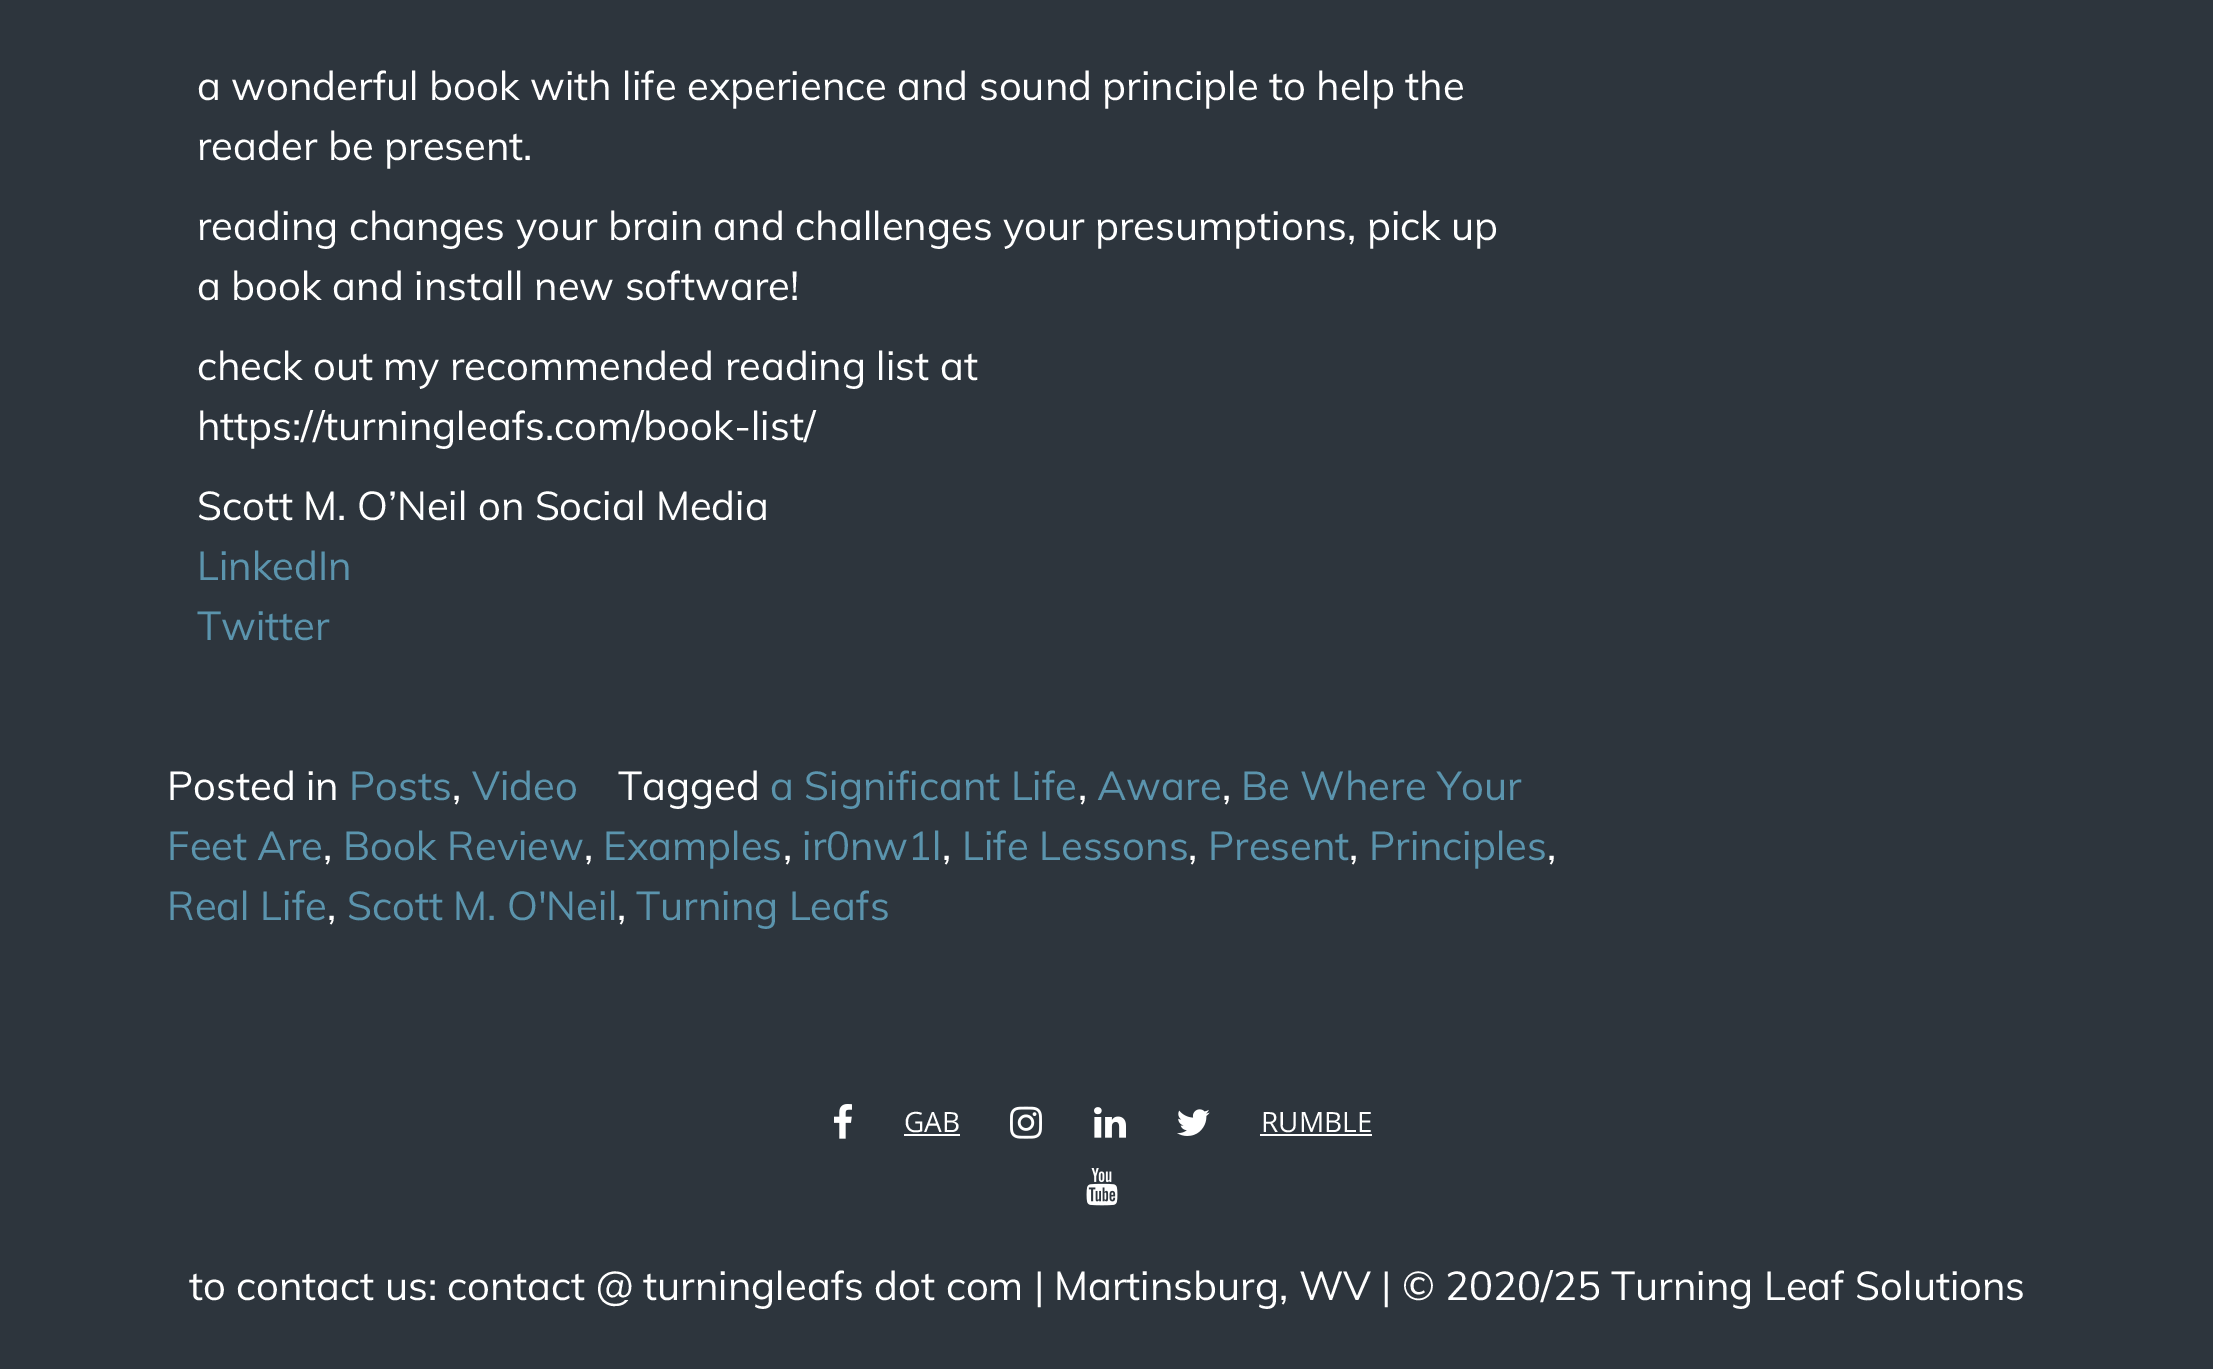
%!PS-Adobe-3.0
%%BoundingBox: 0 0 2213 1369
%%LanguageLevel: 3
%%Pages: 1
%%EndComments
%%BeginProlog
/drawimage { 5 dict begin { /h /w /y /x /name } { exch def } forall
  gsave x y translate w h scale
  w h 8 [w 0 0 h 0 0] name (r) file false 3 colorimage grestore end } def
%%EndProlog
%%BeginSetup
<< /PageSize [2213 1369] >> setpagedevice
%%EndSetup
%%Page: 1 1
0 1369 translate 1 -1 scale
4 setmiterlimit
0.176 0.208 0.239 setrgbcolor
0 0 2213 1369 rectfill
(images/1.raw) 834 1104 18 35 drawimage
1 setgray
904 1134 56 2 rectfill
(images/2.raw) 1010 1106 32 33 drawimage
(images/3.raw) 1094 1107 32 31 drawimage
(images/4.raw) 1177 1109 33 27 drawimage
1260 1134 112 2 rectfill
(images/5.raw) 1086 1168 32 38 drawimage
/Muli-Regular [40 0 0 -40 0 0] selectfont
197 100 moveto (a wonderful book with life experience and sound principle to help the) show
197 160 moveto (reader be present.) show
197 240 moveto (reading changes your brain and challenges your presumptions, pick up) show
197 300 moveto (a book and install new software!) show
197 380 moveto (check out my recommended reading list at) show
197 440 moveto (https://turningleafs.com/book-list/) show
197 520 moveto (Scott M. O’Neil on Social Media) show
0.357 0.58 0.678 setrgbcolor
197 580 moveto (LinkedIn) show
197 640 moveto (Twitter) show
1 setgray
167 800 moveto (Posted in) show
0.357 0.58 0.678 setrgbcolor
349 800 moveto (Posts) show
1 setgray
452 800 moveto (,) show
0.357 0.58 0.678 setrgbcolor
472 800 moveto (Video) show
1 setgray
618 800 moveto (Tagged) show
0.357 0.58 0.678 setrgbcolor
770 800 moveto (a Significant Life) show
1 setgray
1078 800 moveto (,) show
0.357 0.58 0.678 setrgbcolor
1097 800 moveto (Aware) show
1 setgray
1222 800 moveto (,) show
0.357 0.58 0.678 setrgbcolor
1241 800 moveto (Be Where Your) show
167 860 moveto (Feet Are) show
1 setgray
323 860 moveto (,) show
0.357 0.58 0.678 setrgbcolor
343 860 moveto (Book Review) show
1 setgray
584 860 moveto (,) show
0.357 0.58 0.678 setrgbcolor
603 860 moveto (Examples) show
1 setgray
783 860 moveto (,) show
0.357 0.58 0.678 setrgbcolor
802 860 moveto (ir0nw1l) show
1 setgray
942 860 moveto (,) show
0.357 0.58 0.678 setrgbcolor
962 860 moveto (Life Lessons) show
1 setgray
1188 860 moveto (,) show
0.357 0.58 0.678 setrgbcolor
1208 860 moveto (Present) show
1 setgray
1349 860 moveto (,) show
0.357 0.58 0.678 setrgbcolor
1369 860 moveto (Principles) show
1 setgray
1547 860 moveto (,) show
0.357 0.58 0.678 setrgbcolor
167 920 moveto (Real Life) show
1 setgray
327 920 moveto (,) show
0.357 0.58 0.678 setrgbcolor
347 920 moveto (Scott M. O'Neil) show
1 setgray
617 920 moveto (,) show
0.357 0.58 0.678 setrgbcolor
636 920 moveto (Turning Leafs) show
/OpenSans-Regular [28 0 0 -28 0 0] selectfont
1 setgray
904 1132 moveto (GAB) show
1261 1132 moveto (RUMBLE) show
/Muli-Regular [40 0 0 -40 0 0] selectfont
189 1300 moveto (to contact us: contact @ turningleafs dot com) show
1034 1300 moveto (|) show
1054 1300 moveto (Martinsburg, WV) show
1381 1300 moveto (|) show
1402 1300 moveto (© 2020/25 Turning Leaf Solutions) show
showpage
%%EOF
